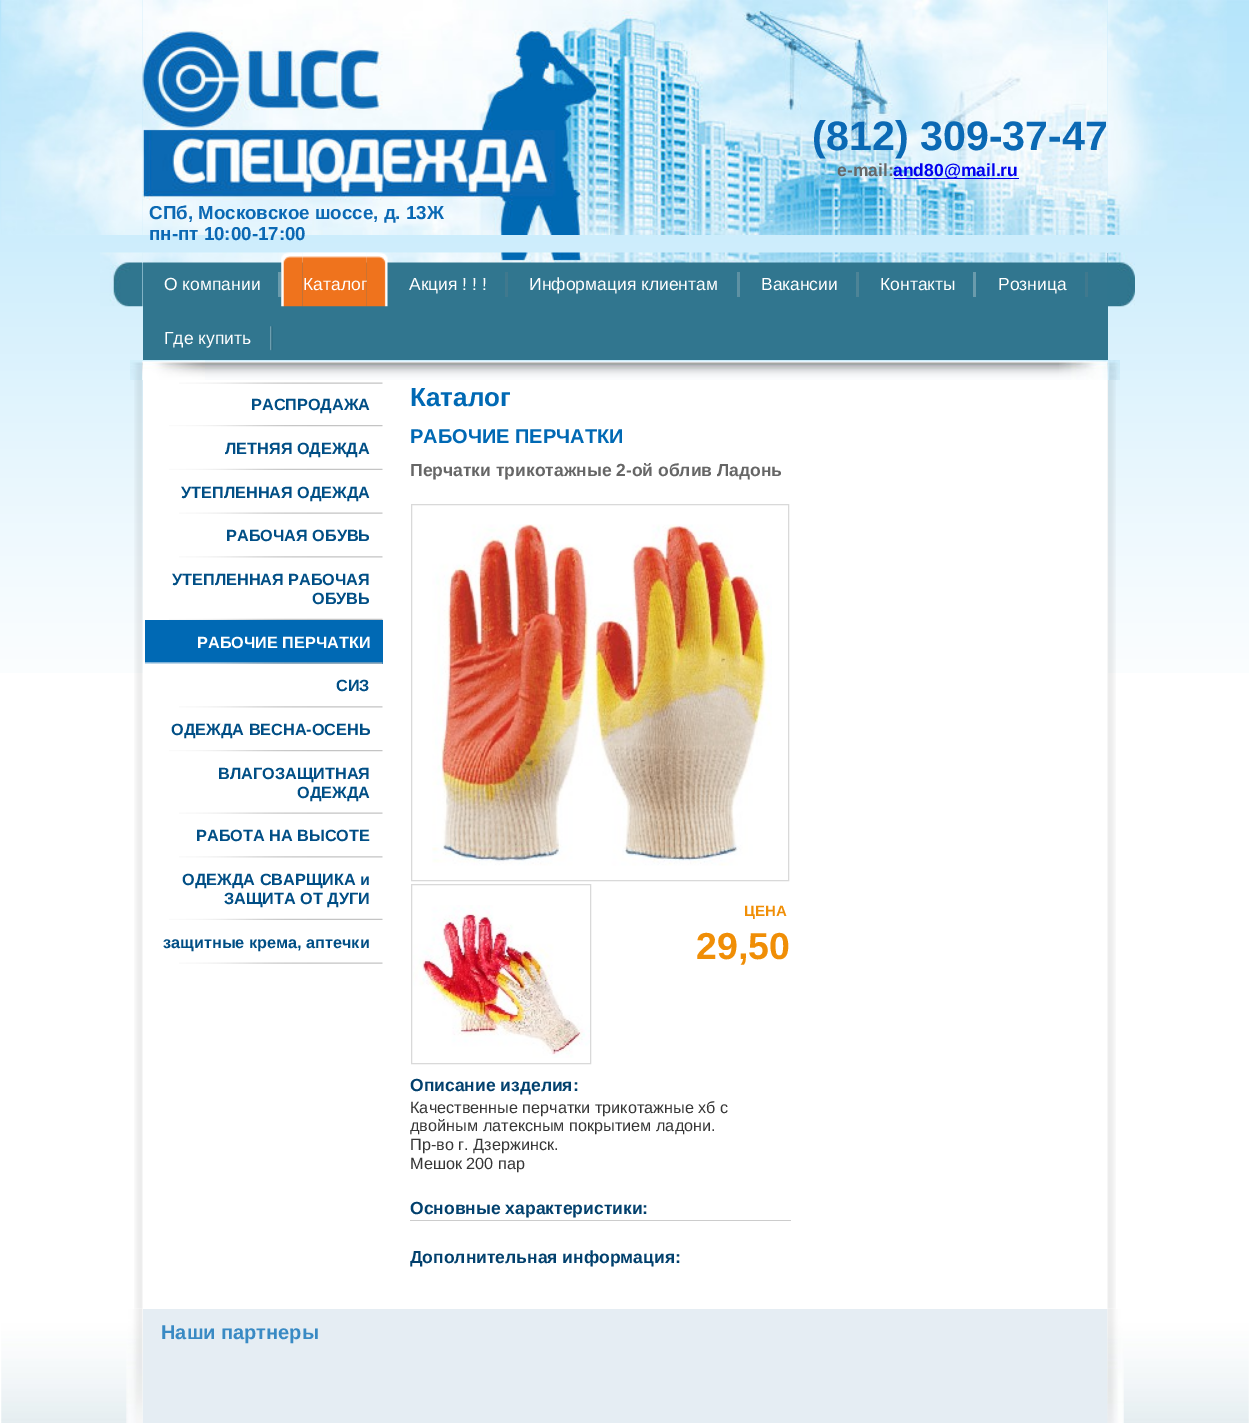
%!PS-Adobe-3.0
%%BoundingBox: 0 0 1249 1423
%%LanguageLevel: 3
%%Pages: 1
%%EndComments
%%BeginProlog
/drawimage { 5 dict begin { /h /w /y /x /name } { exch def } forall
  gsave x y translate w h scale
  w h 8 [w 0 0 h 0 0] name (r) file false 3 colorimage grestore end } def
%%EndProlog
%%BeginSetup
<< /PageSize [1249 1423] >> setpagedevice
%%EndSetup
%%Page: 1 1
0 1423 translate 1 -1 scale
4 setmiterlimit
1 setgray
0 0 1249 1423 rectfill
(images/1.raw) 0 0 1249 673 drawimage
(images/2.raw) 1 0 142 235 drawimage
(images/3.raw) 142 0 966 235 drawimage
0 0 0.933 setrgbcolor
894 178 125 1 rectfill
(images/4.raw) 1107 0 120 235 drawimage
(images/5.raw) 100 252 43 55 drawimage
0.192 0.463 0.561 setrgbcolor
143 253 965 107 rectfill
(images/6.raw) 142 252 966 11 drawimage
0.416 0.608 0.675 setrgbcolor
278 272 3 25 rectfill
(images/7.raw) 281 252 22 55 drawimage
(images/8.raw) 366 252 22 55 drawimage
(images/9.raw) 302 252 65 55 drawimage
0.251 0.475 0.557 setrgbcolor
505 272 3 25 rectfill
0.369 0.569 0.639 setrgbcolor
737 272 3 25 rectfill
0.302 0.518 0.592 setrgbcolor
856 272 3 25 rectfill
0.416 0.608 0.675 setrgbcolor
973 272 3 25 rectfill
0.251 0.475 0.557 setrgbcolor
1085 272 3 25 rectfill
(images/10.raw) 270 326 3 25 drawimage
(images/11.raw) 1107 252 28 55 drawimage
(images/12.raw) 130 360 13 20 drawimage
(images/13.raw) 142 360 966 20 drawimage
(images/14.raw) 142 360 63 20 drawimage
(images/16.raw) 1107 360 13 20 drawimage
(images/15.raw) 1059 360 49 20 drawimage
(images/17.raw) 134 380 9 929 drawimage
1 setgray
143 380 965 293 rectfill
(images/18.raw) 179 382 204 2 drawimage
(images/19.raw) 169 425 214 2 drawimage
(images/20.raw) 169 468 214 2 drawimage
(images/18.raw) 179 512 204 2 drawimage
(images/21.raw) 179 556 204 2 drawimage
(images/20.raw) 169 618 214 2 drawimage
0 0.412 0.706 setrgbcolor
145 620 238 44 rectfill
(images/22.raw) 145 662 238 2 drawimage
(images/21.raw) 179 706 204 2 drawimage
(images/19.raw) 169 750 214 2 drawimage
(images/18.raw) 179 812 204 2 drawimage
(images/21.raw) 179 856 204 2 drawimage
(images/20.raw) 169 918 214 2 drawimage
(images/18.raw) 179 962 204 2 drawimage
0.851 setgray
411.5 504.5 377 376 rectstroke
(images/23.raw) 432 524 340 342 drawimage
411.5 884.5 179 179 rectstroke
(images/24.raw) 413 905 177 153 drawimage
0.8 setgray
410 1220 381 1 rectfill
(images/25.raw) 1107 380 9 929 drawimage
(images/26.raw) 1 1309 142 114 drawimage
0.898 0.929 0.953 setrgbcolor
143 1309 965 114 rectfill
(images/27.raw) 1107 1309 142 114 drawimage
/LiberationSans-Bold [41.25 0 0 -41.25 0 0] selectfont
0.043 0.412 0.706 setrgbcolor
812 150 moveto (\(812\) 309-37-47) show
/LiberationSans-Bold [17.5 0 0 -17.5 0 0] selectfont
0.4 setgray
837 176 moveto (e-mail:) show
0 0 0.933 setrgbcolor
893 176 moveto (and80@mail.ru) show
/LiberationSans-Bold [18.75 0 0 -18.75 0 0] selectfont
0.043 0.412 0.706 setrgbcolor
149 219 moveto (СПб, Московское шоссе, д. 13Ж) show
149 240 moveto (пн-пт 10:00-17:00) show
/LiberationSans-Regular [17.5 0 0 -17.5 0 0] selectfont
1 setgray
164 290 moveto (О компании) show
303 290 moveto (Каталог) show
409 290 moveto (Акция ! ! !) show
529 290 moveto (Информация клиентам) show
761 290 moveto (Вакансии) show
880 290 moveto (Контакты) show
998 290 moveto (Розница) show
164 344 moveto (Где купить) show
/LiberationSans-Bold [16.25 0 0 -16.25 0 0] selectfont
0 0.306 0.522 setrgbcolor
251 410 moveto (РАСПРОДАЖА) show
225 454 moveto (ЛЕТНЯЯ ОДЕЖДА) show
181 498 moveto (УТЕПЛЕННАЯ ОДЕЖДА) show
226 541 moveto (РАБОЧАЯ ОБУВЬ) show
172 585 moveto (УТЕПЛЕННАЯ РАБОЧАЯ) show
312 604 moveto (ОБУВЬ) show
1 setgray
197 648 moveto (РАБОЧИЕ ПЕРЧАТКИ) show
0 0.306 0.522 setrgbcolor
336 691 moveto (СИЗ) show
171 735 moveto (ОДЕЖДА ВЕСНА-ОСЕНЬ) show
218 779 moveto (ВЛАГОЗАЩИТНАЯ) show
297 798 moveto (ОДЕЖДА) show
196 841 moveto (РАБОТА НА ВЫСОТЕ) show
182 885 moveto (ОДЕЖДА СВАРЩИКА и) show
224 904 moveto (ЗАЩИТА ОТ ДУГИ) show
163 948 moveto (защитные крема, аптечки) show
/LiberationSans-Bold [26 0 0 -26 0 0] selectfont
0 0.412 0.706 setrgbcolor
410 406 moveto (Каталог) show
/LiberationSans-Bold [20 0 0 -20 0 0] selectfont
410 443 moveto (РАБОЧИЕ ПЕРЧАТКИ) show
/LiberationSans-Bold [17.5 0 0 -17.5 0 0] selectfont
0.4 setgray
410 476 moveto (Перчатки трикотажные 2-ой облив Ладонь) show
/LiberationSans-Bold [15 0 0 -15 0 0] selectfont
0.941 0.557 0.024 setrgbcolor
744 916 moveto (ЦЕНА) show
/LiberationSans-Bold [37.5 0 0 -37.5 0 0] selectfont
696 959 moveto (29,50) show
/LiberationSans-Bold [17.5 0 0 -17.5 0 0] selectfont
0.004 0.251 0.427 setrgbcolor
410 1091 moveto (Описание изделия:) show
/LiberationSans-Regular [16.25 0 0 -16.25 0 0] selectfont
0.212 setgray
410 1113 moveto (Качественные перчатки трикотажные хб с) show
410 1131 moveto (двойным латексным покрытием ладони.) show
410 1150 moveto (Пр-во г. Дзержинск.) show
410 1169 moveto (Мешок 200 пар) show
/LiberationSans-Bold [17.5 0 0 -17.5 0 0] selectfont
0.004 0.251 0.427 setrgbcolor
410 1214 moveto (Основные характеристики:) show
410 1263 moveto (Дополнительная информация:) show
/LiberationSans-Bold [20 0 0 -20 0 0] selectfont
0.224 0.541 0.769 setrgbcolor
161 1339 moveto (Наши партнеры) show
showpage
%%EOF
